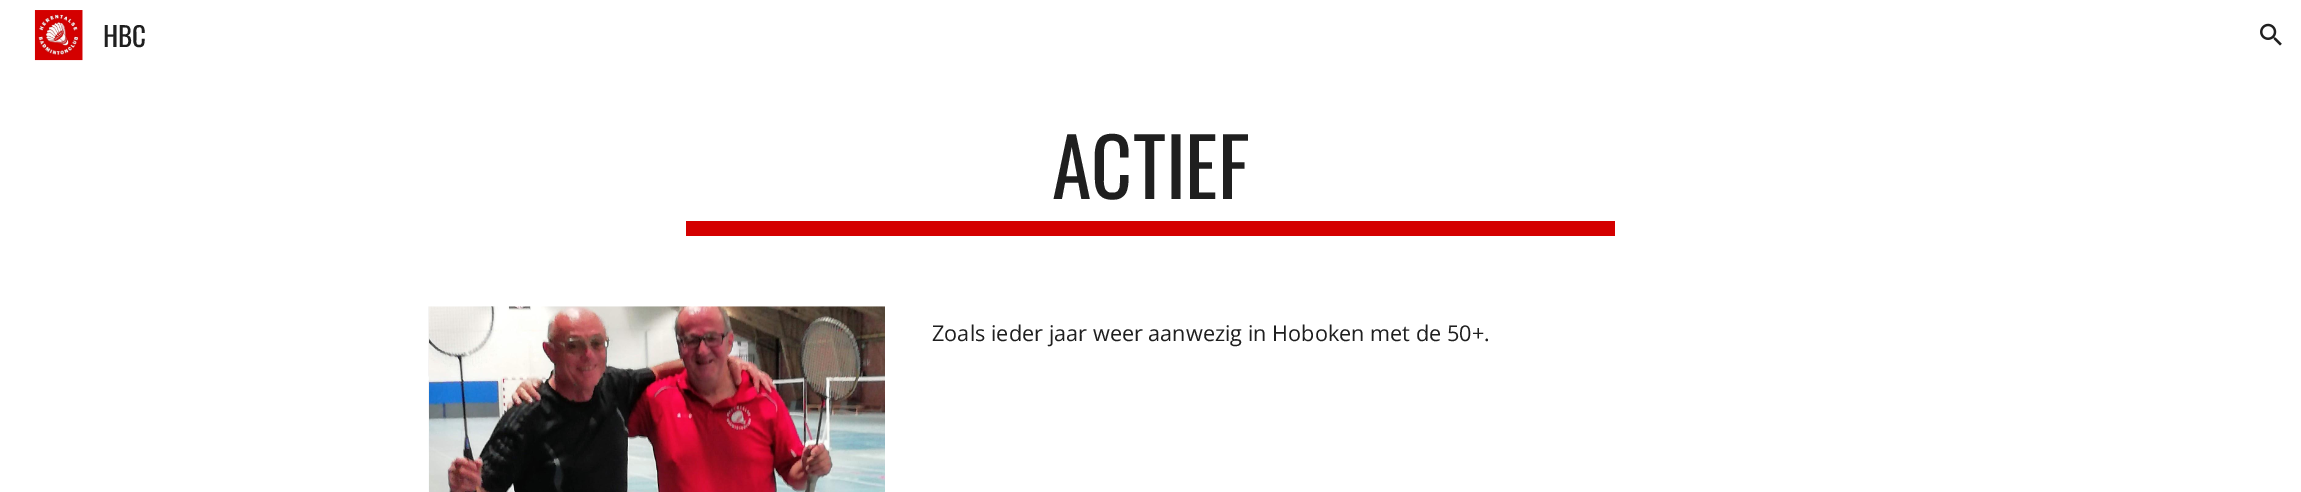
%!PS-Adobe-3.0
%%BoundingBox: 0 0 2301 492
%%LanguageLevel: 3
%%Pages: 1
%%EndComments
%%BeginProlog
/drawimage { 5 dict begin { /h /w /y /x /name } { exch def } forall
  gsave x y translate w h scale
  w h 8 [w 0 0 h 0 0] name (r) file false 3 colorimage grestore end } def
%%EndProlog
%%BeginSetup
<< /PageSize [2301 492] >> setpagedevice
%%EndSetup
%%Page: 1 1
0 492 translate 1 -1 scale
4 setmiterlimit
1 setgray
0 0 2301 492 rectfill
(images/1.raw) 34 10 49 51 drawimage
(images/2.raw) 2260 23 22 23 drawimage
0.831 0 0 setrgbcolor
686 221 929 15 rectfill
(images/3.raw) 428 306 457 186 drawimage
/Oswald-Regular [27 0 0 -27 0 0] selectfont
0.122 setgray
103 47 moveto (HBC) show
/Oswald-Regular [80 0 0 -80 0 0] selectfont
1052 199 moveto (ACTIEF) show
/OpenSans-Regular [21.7 0 0 -21.7 0 0] selectfont
932 341 moveto (Zoals ieder jaar weer aanwezig in Hoboken met de 50+.) show
showpage
%%EOF
